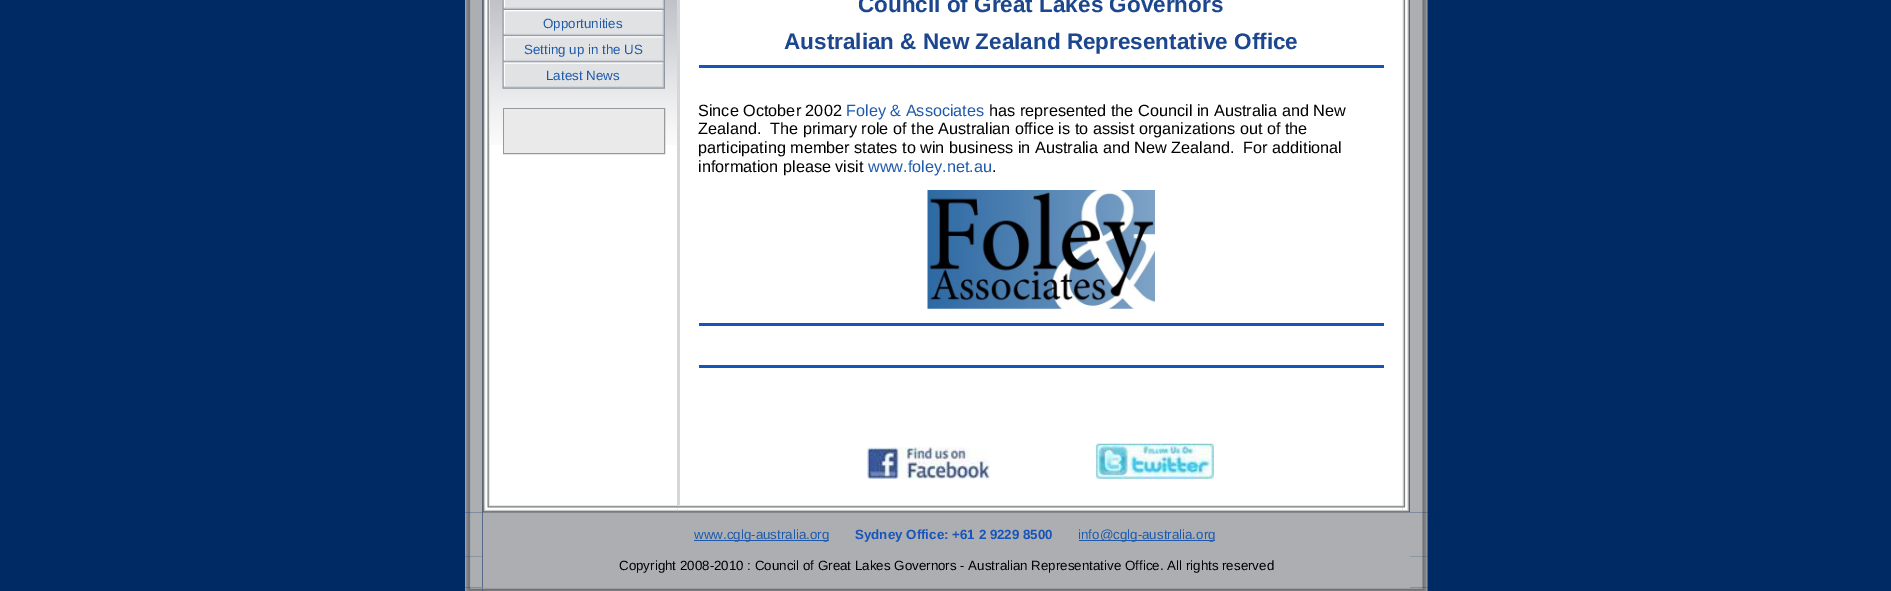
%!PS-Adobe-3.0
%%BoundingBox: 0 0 1891 591
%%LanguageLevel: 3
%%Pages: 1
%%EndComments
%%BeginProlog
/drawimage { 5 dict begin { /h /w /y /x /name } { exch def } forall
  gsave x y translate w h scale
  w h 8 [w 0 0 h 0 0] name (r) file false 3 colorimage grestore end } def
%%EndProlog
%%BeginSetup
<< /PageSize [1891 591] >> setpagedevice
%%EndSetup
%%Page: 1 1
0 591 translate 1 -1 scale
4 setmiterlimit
0 0.165 0.388 setrgbcolor
0 0 1891 591 rectfill
(images/1.raw) 465 0 18 513 drawimage
0.675 0.682 0.698 setrgbcolor
483 505 927 83 rectfill
(images/2.raw) 482 0 8 505 drawimage
1 setgray
490 145 187 360 rectfill
(images/3.raw) 490 0 187 145 drawimage
(images/4.raw) 502 0 163 10 drawimage
(images/5.raw) 502 10 163 27 drawimage
(images/6.raw) 502 36 163 27 drawimage
(images/7.raw) 502 62 163 27 drawimage
0.6 setgray
503.5 108.5 161 45 rectstroke
0.918 setgray
504 109 160 44 rectfill
0.835 0.839 0.839 setrgbcolor
677 0 3 505 rectfill
1 setgray
680 0 723 505 rectfill
0.086 0.329 0.725 setrgbcolor
699 65 685 3 rectfill
(images/8.raw) 927 190 228 119 drawimage
699 323 685 3 rectfill
699 365 685 3 rectfill
(images/9.raw) 867 447 123 32 drawimage
(images/10.raw) 1096 443 118 36 drawimage
(images/11.raw) 1402 0 8 505 drawimage
(images/18.raw) 465 512 18 45 drawimage
(images/12.raw) 482 505 8 8 drawimage
(images/13.raw) 490 505 188 8 drawimage
(images/14.raw) 677 505 3 8 drawimage
(images/15.raw) 680 505 723 8 drawimage
(images/16.raw) 1402 505 8 8 drawimage
(images/17.raw) 1410 0 18 513 drawimage
0.118 0.353 0.671 setrgbcolor
694 540 135 1 rectfill
1079 540 136 1 rectfill
(images/19.raw) 1410 512 18 45 drawimage
(images/20.raw) 465 556 18 32 drawimage
(images/21.raw) 1410 556 18 32 drawimage
(images/23.raw) 482 587 928 4 drawimage
(images/22.raw) 465 587 18 4 drawimage
(images/24.raw) 1410 587 18 4 drawimage
/LiberationSans-Regular [13.35 0 0 -13.35 0 0] selectfont
543 28 moveto (Opportunities) show
524 54 moveto (Setting up in the US) show
546 80 moveto (Latest News) show
/LiberationSans-Bold [22.5 0 0 -22.5 0 0] selectfont
0.11 0.278 0.557 setrgbcolor
858 12 moveto (Council of Great Lakes Governors) show
784 49 moveto (Australian & New Zealand Representative Office) show
/LiberationSans-Regular [16.25 0 0 -16.25 0 0] selectfont
0 setgray
698 116 moveto (Since October 2002) show
0.118 0.353 0.671 setrgbcolor
846 116 moveto (Foley & Associates) show
0 setgray
989 116 moveto (has represented the Council in Australia and New) show
698 134 moveto (Zealand.  The primary role of the Australian office is to assist organizations out of the) show
698 153 moveto (participating member states to win business in Australia and New Zealand.  For additional) show
698 172 moveto (information please visit) show
0.118 0.353 0.671 setrgbcolor
868 172 moveto (www.foley.net.au) show
0 setgray
992 172 moveto (.) show
/LiberationSans-Regular [13.35 0 0 -13.35 0 0] selectfont
0.118 0.353 0.671 setrgbcolor
694 539 moveto (www.cglg-australia.org) show
/LiberationSans-Bold [13.35 0 0 -13.35 0 0] selectfont
0.086 0.329 0.725 setrgbcolor
855 539 moveto (Sydney Office: +61 2 9229 8500) show
/LiberationSans-Regular [13.35 0 0 -13.35 0 0] selectfont
0.118 0.353 0.671 setrgbcolor
1078 539 moveto (info@cglg-australia.org) show
0 setgray
619 570 moveto (Copyright 2008-2010 : Council of Great Lakes Governors - Australian Representative Office. All rights reserved) show
showpage
%%EOF
